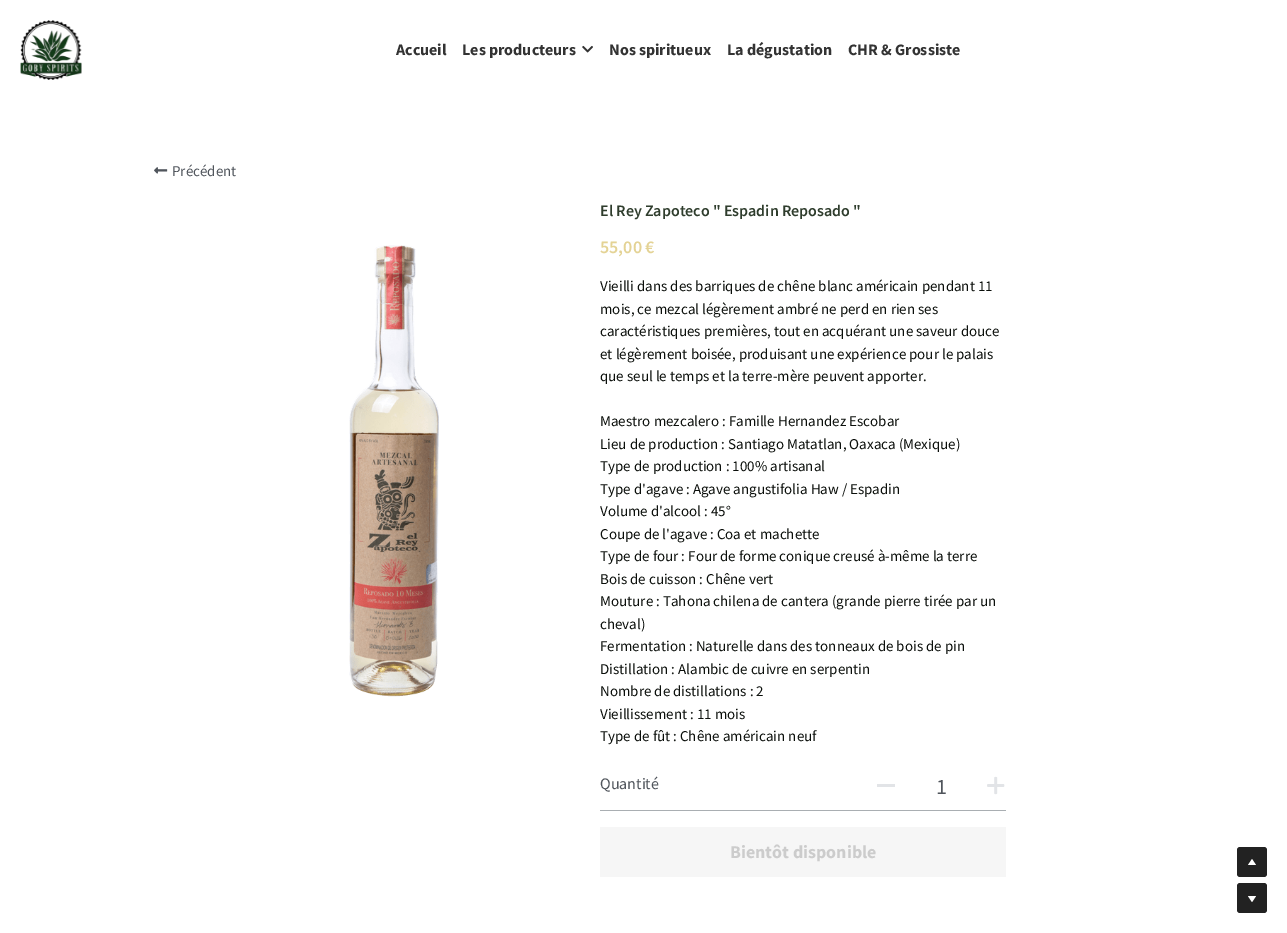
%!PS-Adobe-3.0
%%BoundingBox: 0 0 1287 933
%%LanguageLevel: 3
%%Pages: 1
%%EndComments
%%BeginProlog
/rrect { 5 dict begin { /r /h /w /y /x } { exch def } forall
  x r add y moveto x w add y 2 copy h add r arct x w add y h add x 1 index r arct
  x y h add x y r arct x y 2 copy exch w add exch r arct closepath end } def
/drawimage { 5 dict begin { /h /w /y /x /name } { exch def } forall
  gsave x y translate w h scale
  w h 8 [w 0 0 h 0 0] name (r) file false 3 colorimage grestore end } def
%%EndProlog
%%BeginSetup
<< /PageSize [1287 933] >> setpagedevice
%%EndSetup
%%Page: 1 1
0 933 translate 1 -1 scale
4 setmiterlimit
1 setgray
0 0 1287 933 rectfill
(images/1.raw) 20 20 62 60 drawimage
(images/2.raw) 582 45 11 8 drawimage
(images/3.raw) 154 167 14 7 drawimage
(images/4.raw) 349 245 90 452 drawimage
0.663 0.682 0.698 setrgbcolor
600 810 406 1 rectfill
0.886 0.894 0.906 setrgbcolor
877 784 18 3 rectfill
(images/5.raw) 987 776 18 19 drawimage
0.965 setgray
600 827 406 50 rectfill
0.133 setgray
1237 847 30 30 3 rrect fill
(images/6.raw) 1248 859 8 6 drawimage
1237 883 30 30 3 rrect fill
(images/7.raw) 1248 896 8 6 drawimage
/SourceSansPro-Bold [16 0 0 -16 0 0] selectfont
0.2 setgray
396 55 moveto (Accueil) show
462 55 moveto (Les producteurs) show
609 55 moveto (Nos spiritueux) show
727 55 moveto (La dégustation) show
848 55 moveto (CHR & Grossiste) show
/SourceSansPro-Regular [15 0 0 -15 0 0] selectfont
0.314 0.333 0.361 setrgbcolor
172 176 moveto (Précédent) show
/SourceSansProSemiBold-SemiBold [16 0 0 -16 0 0] selectfont
0.184 0.239 0.176 setrgbcolor
600 216 moveto (El Rey Zapoteco " Espadin Reposado ") show
/SourceSansProSemiBold-SemiBold [18 0 0 -18 0 0] selectfont
0.894 0.827 0.584 setrgbcolor
600 253 moveto (55,00 €) show
/SourceSansPro-Regular [15 0 0 -15 0 0] selectfont
0.043 0.059 0.043 setrgbcolor
600 291 moveto (Vieilli dans des barriques de chêne blanc américain pendant 11) show
600 314 moveto (mois, ce mezcal légèrement ambré ne perd en rien ses) show
600 336 moveto (caractéristiques premières, tout en acquérant une saveur douce) show
600 359 moveto (et légèrement boisée, produisant une expérience pour le palais) show
600 381 moveto (que seul le temps et la terre-mère peuvent apporter.) show
600 426 moveto (Maestro mezcalero : Famille Hernandez Escobar) show
600 449 moveto (Lieu de production : Santiago Matatlan, Oaxaca \(Mexique\)) show
600 471 moveto (Type de production : 100% artisanal) show
600 494 moveto (Type d'agave : Agave angustifolia Haw / Espadin) show
600 516 moveto (Volume d'alcool : 45°) show
600 539 moveto (Coupe de l'agave : Coa et machette) show
600 561 moveto (Type de four : Four de forme conique creusé à-même la terre) show
600 584 moveto (Bois de cuisson : Chêne vert) show
600 606 moveto (Mouture : Tahona chilena de cantera \(grande pierre tirée par un) show
600 629 moveto (cheval\)) show
600 651 moveto (Fermentation : Naturelle dans des tonneaux de bois de pin) show
600 674 moveto (Distillation : Alambic de cuivre en serpentin) show
600 696 moveto (Nombre de distillations : 2) show
600 719 moveto (Vieillissement : 11 mois) show
600 741 moveto (Type de fût : Chêne américain neuf) show
/SourceSansPro-Regular [16 0 0 -16 0 0] selectfont
0.314 0.333 0.361 setrgbcolor
600 789 moveto (Quantité) show
/SourceSansPro-Regular [22 0 0 -22 0 0] selectfont
936 794 moveto (1) show
/SourceSansPro-Bold [18 0 0 -18 0 0] selectfont
0.8 setgray
730 858 moveto (Bientôt disponible) show
showpage
%%EOF
